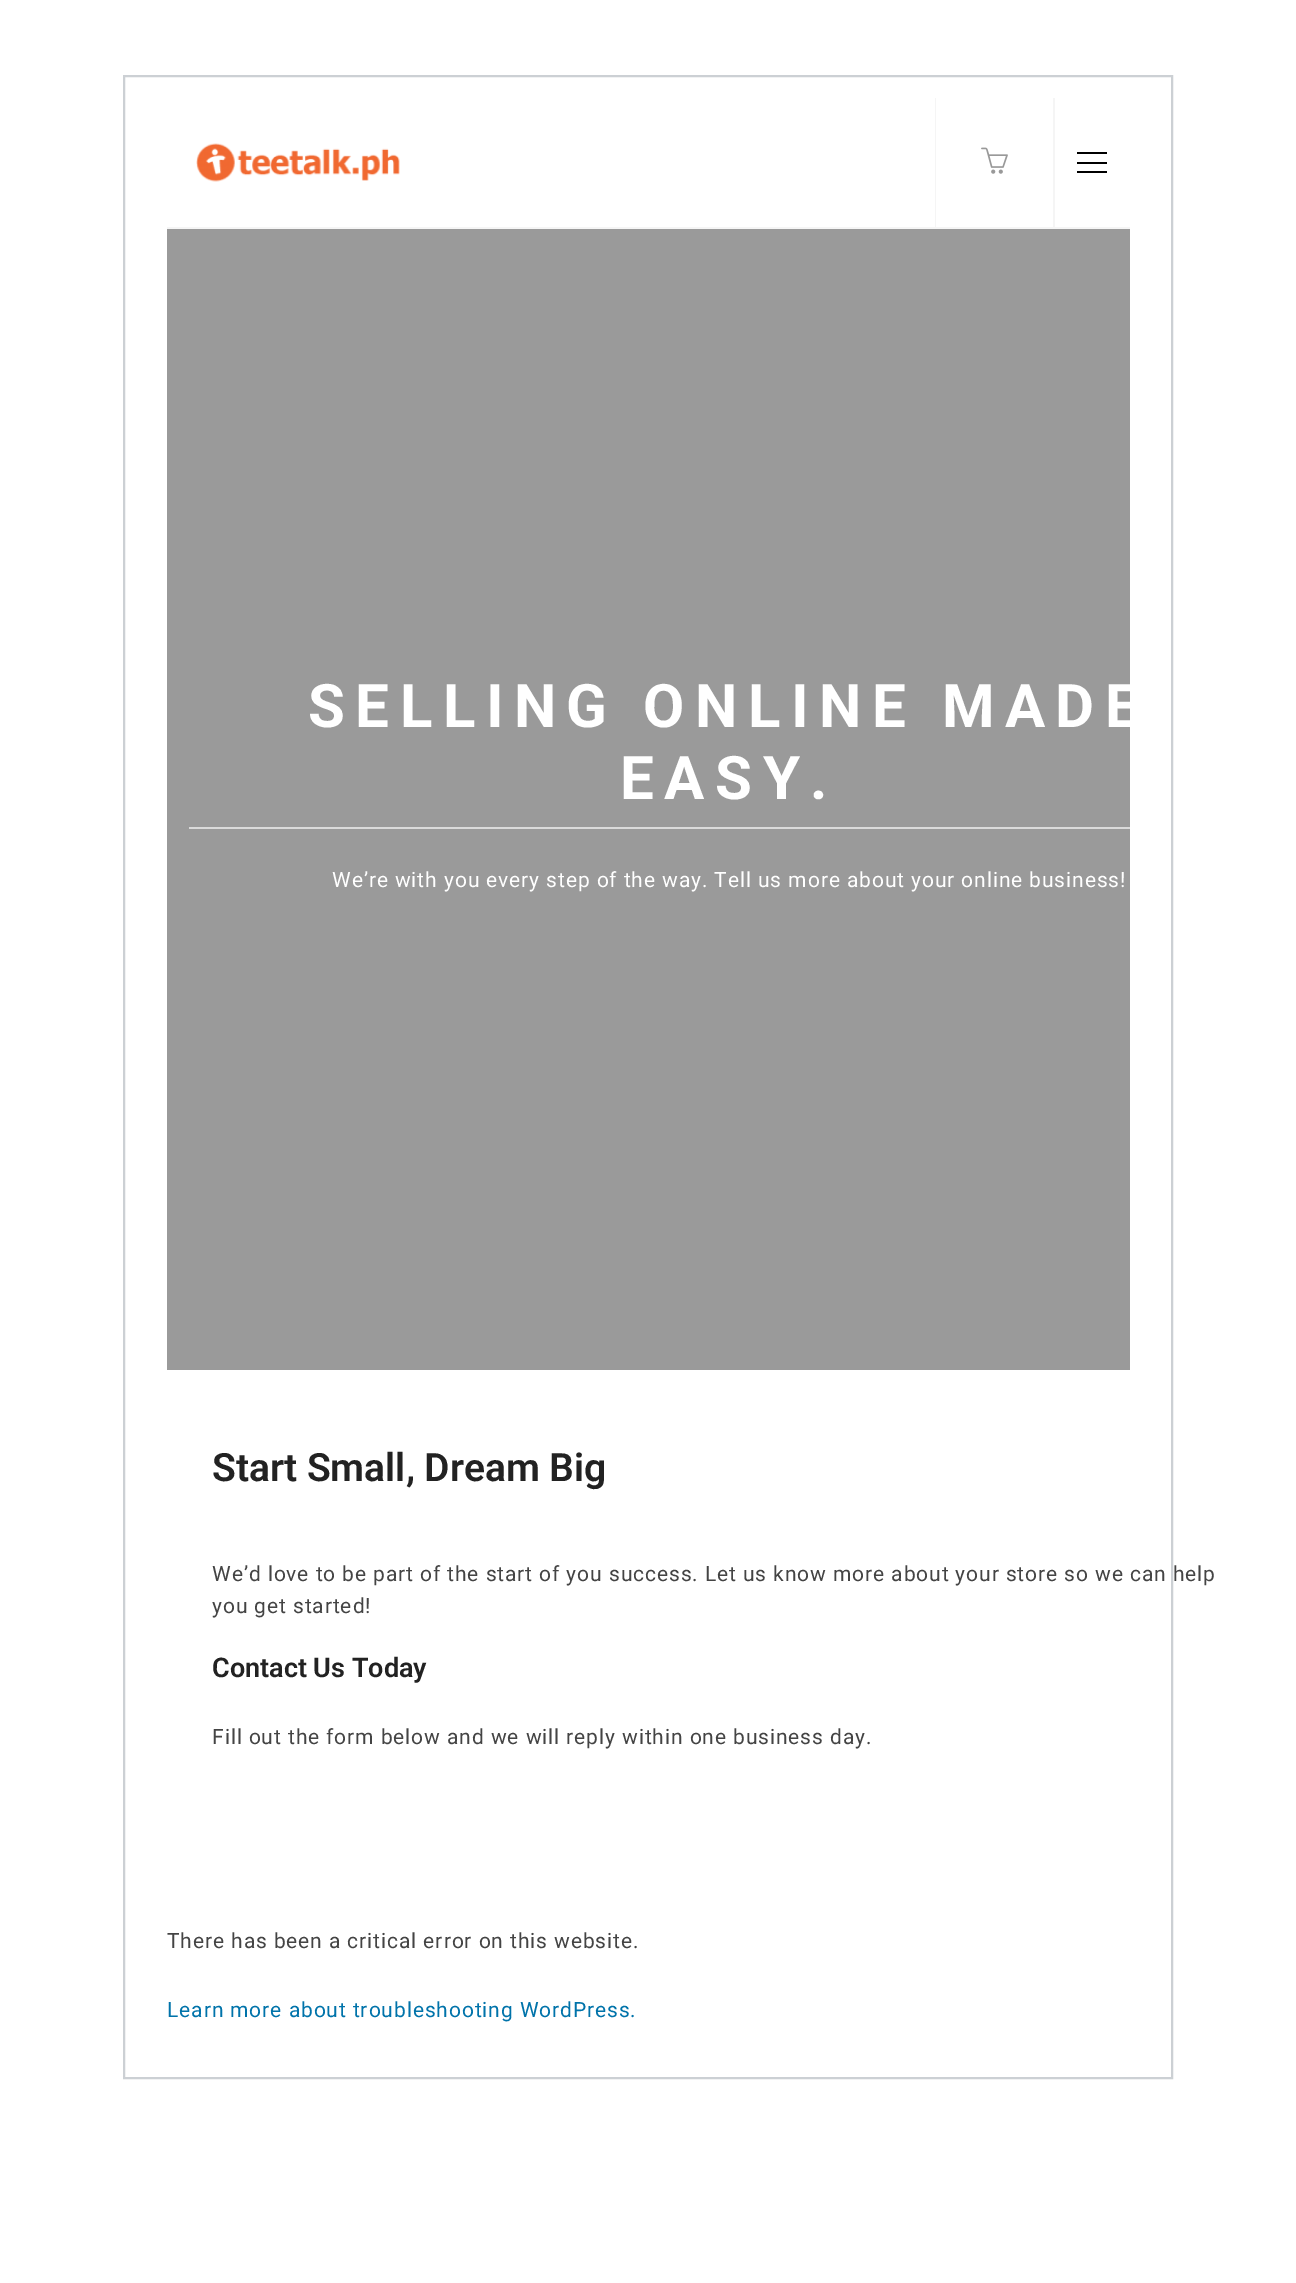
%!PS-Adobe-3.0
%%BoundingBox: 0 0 1296 2283
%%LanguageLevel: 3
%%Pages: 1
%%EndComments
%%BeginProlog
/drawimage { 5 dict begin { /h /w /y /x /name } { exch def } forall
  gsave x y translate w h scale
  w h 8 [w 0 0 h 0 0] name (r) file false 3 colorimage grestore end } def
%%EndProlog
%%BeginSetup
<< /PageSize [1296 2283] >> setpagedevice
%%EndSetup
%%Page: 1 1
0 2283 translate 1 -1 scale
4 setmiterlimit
1 setgray
0 0 1296 2283 rectfill
0.8 0.816 0.831 setrgbcolor
2 setlinewidth
124 76 1048 2002 rectstroke
0.961 setgray
167 227 963 2 rectfill
(images/1.raw) 196 143 204 39 drawimage
935 98 1 130 rectfill
(images/2.raw) 981 147 27 27 drawimage
1053 98 2 129 rectfill
0 setgray
1077 152 30 2 rectfill
1077 162 30 2 rectfill
1077 171 30 2 rectfill
0.604 setgray
167 229 963 1141 rectfill
0.855 setgray
189 827 941 2 rectfill
gsave
167 228 963 1142 rectclip
/Roboto-Bold [60 0 0 -60 0 0] selectfont
1 setgray
308 727 moveto 10.5 0 (SELLING ONLINE MADE) ashow
grestore
/Roboto-Bold [60 0 0 -60 0 0] selectfont
1 setgray
620 799 moveto 10.5 0 (EASY.) ashow
/Roboto-Regular [21 0 0 -21 0 0] selectfont
332 887 moveto 0.9 0 (We’re with you every step of the way. Tell us more about your online business!) ashow
/Roboto-SemiBold [39 0 0 -39 0 0] selectfont
0.133 setgray
212 1481 moveto (Start Small, Dream Big) show
/Roboto-Regular [21 0 0 -21 0 0] selectfont
0.267 setgray
212 1581 moveto 0.9 0 (We’d love to be part of the start of you success. Let us know more about your store so we can help) ashow
212 1613 moveto 0.9 0 (you get started!) ashow
/Roboto-SemiBold [27 0 0 -27 0 0] selectfont
0.133 setgray
212 1677 moveto (Contact Us Today) show
/Roboto-Regular [21 0 0 -21 0 0] selectfont
0.267 setgray
212 1744 moveto 0.9 0 (Fill out the form below and we will reply within one business day.) ashow
167 1948 moveto 0.9 0 (There has been a critical error on this website.) ashow
0 0.451 0.667 setrgbcolor
167 2017 moveto 0.9 0 (Learn more about troubleshooting WordPress.) ashow
showpage
%%EOF
